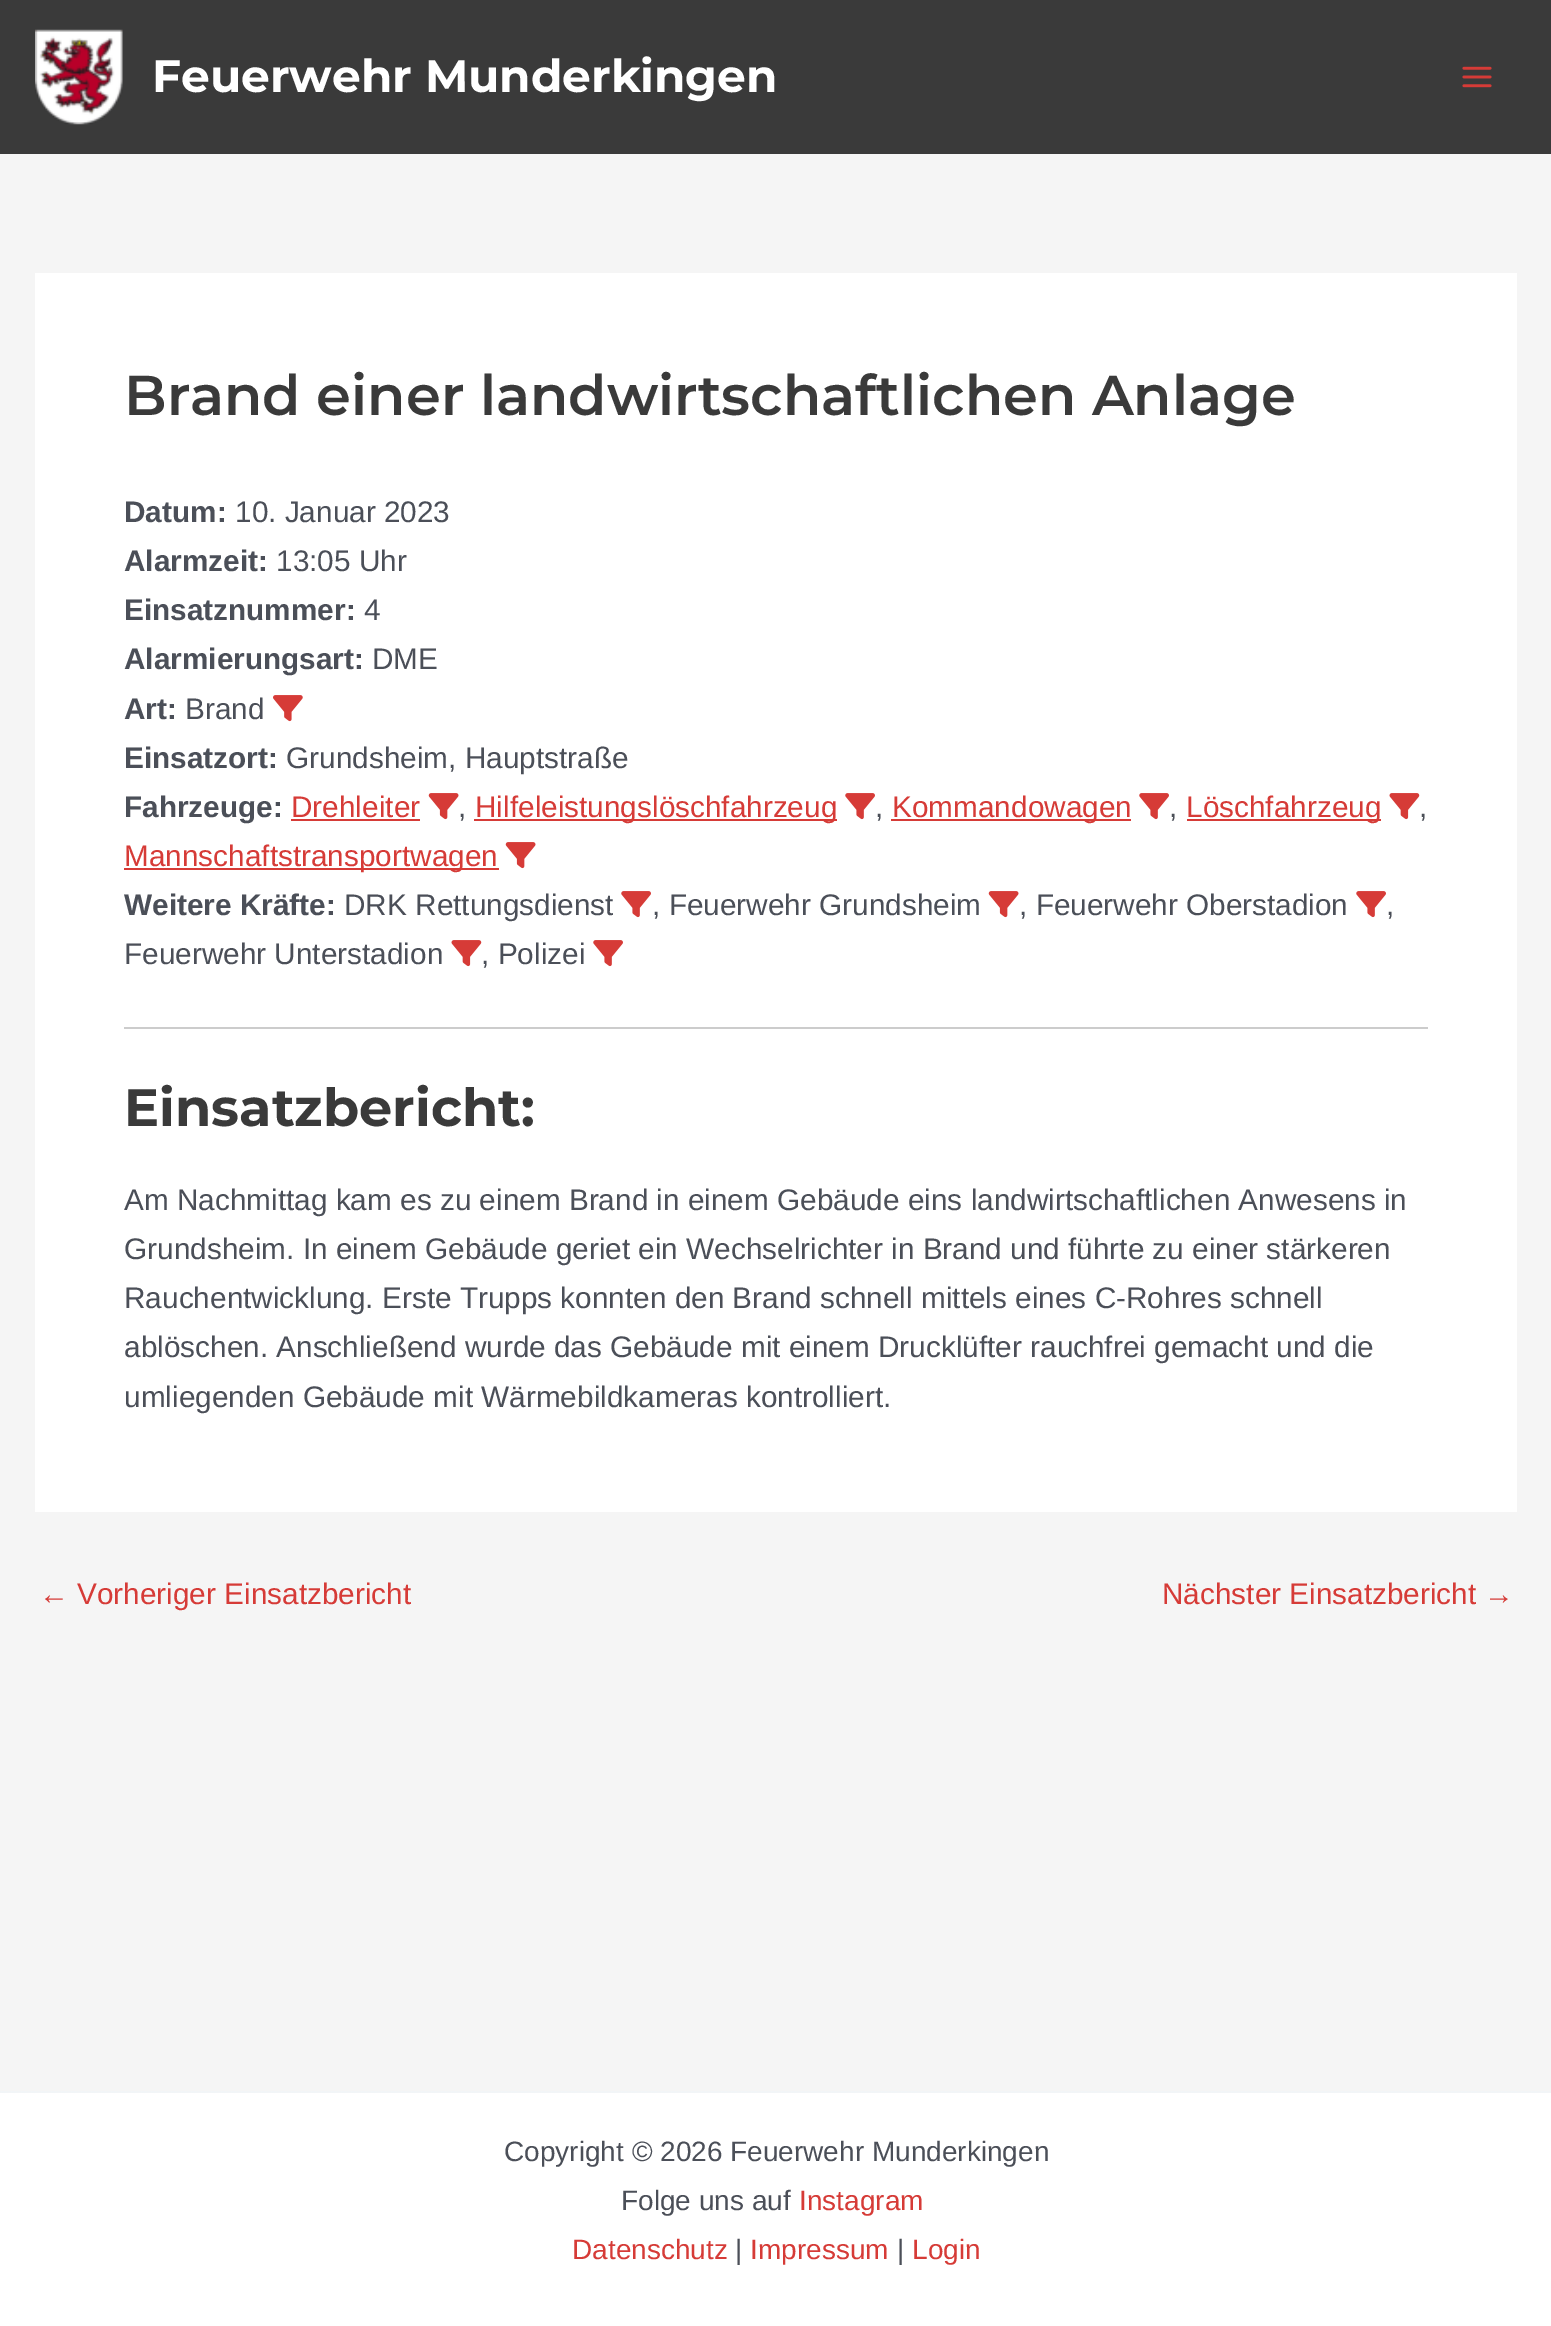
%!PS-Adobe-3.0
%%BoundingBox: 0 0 1551 2326
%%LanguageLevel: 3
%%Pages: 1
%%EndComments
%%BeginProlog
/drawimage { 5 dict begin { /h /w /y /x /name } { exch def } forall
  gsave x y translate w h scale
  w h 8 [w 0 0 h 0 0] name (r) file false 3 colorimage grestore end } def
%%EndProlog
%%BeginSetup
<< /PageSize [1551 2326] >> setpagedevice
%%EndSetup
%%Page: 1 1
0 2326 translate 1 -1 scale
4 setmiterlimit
0.961 setgray
0 0 1551 2326 rectfill
0.227 setgray
0 0 1551 154 rectfill
(images/1.raw) 35 29 88 96 drawimage
(images/2.raw) 1462 66 30 22 drawimage
1 setgray
35 273 1482 1239 rectfill
(images/3.raw) 273 695 30 27 drawimage
0.839 0.231 0.216 setrgbcolor
291 819 129 2 rectfill
(images/4.raw) 428 793 31 27 drawimage
474 819 363 2 rectfill
(images/5.raw) 845 793 30 27 drawimage
891 819 240 2 rectfill
(images/5.raw) 1139 793 30 27 drawimage
1187 819 194 2 rectfill
(images/6.raw) 1389 793 31 27 drawimage
124 868 375 2 rectfill
(images/4.raw) 505 842 31 27 drawimage
(images/5.raw) 621 891 30 27 drawimage
(images/4.raw) 988 891 31 27 drawimage
(images/5.raw) 1356 891 30 27 drawimage
(images/6.raw) 451 940 31 27 drawimage
(images/5.raw) 593 940 30 27 drawimage
0.8 setgray
124 1027 1304 2 rectfill
1 setgray
0 2093 1551 233 rectfill
0.949 0.961 0.969 setrgbcolor
0 2091 1551 2 rectfill
/Montserrat-Bold [45.5 0 0 -45.5 0 0] selectfont
1 setgray
152 92 moveto (Feuerwehr Munderkingen) show
/Montserrat-SemiBold [56 0 0 -56 0 0] selectfont
0.227 setgray
124 415 moveto (Brand einer landwirtschaftlichen Anlage) show
/LiberationSans-Bold [29.75 0 0 -29.75 0 0] selectfont
0.294 0.31 0.345 setrgbcolor
124 522 moveto (Datum:) show
/LiberationSans-Regular [29.75 0 0 -29.75 0 0] selectfont
235 522 moveto (10. Januar 2023) show
/LiberationSans-Bold [29.75 0 0 -29.75 0 0] selectfont
124 571 moveto (Alarmzeit:) show
/LiberationSans-Regular [29.75 0 0 -29.75 0 0] selectfont
276 571 moveto (13:05 Uhr) show
/LiberationSans-Bold [29.75 0 0 -29.75 0 0] selectfont
124 620 moveto (Einsatznummer:) show
/LiberationSans-Regular [29.75 0 0 -29.75 0 0] selectfont
364 620 moveto (4) show
/LiberationSans-Bold [29.75 0 0 -29.75 0 0] selectfont
124 669 moveto (Alarmierungsart:) show
/LiberationSans-Regular [29.75 0 0 -29.75 0 0] selectfont
372 669 moveto (DME) show
/LiberationSans-Bold [29.75 0 0 -29.75 0 0] selectfont
124 719 moveto (Art:) show
/LiberationSans-Regular [29.75 0 0 -29.75 0 0] selectfont
185 719 moveto (Brand) show
/LiberationSans-Bold [29.75 0 0 -29.75 0 0] selectfont
124 768 moveto (Einsatzort:) show
/LiberationSans-Regular [29.75 0 0 -29.75 0 0] selectfont
286 768 moveto (Grundsheim, Hauptstraße) show
/LiberationSans-Bold [29.75 0 0 -29.75 0 0] selectfont
124 817 moveto (Fahrzeuge:) show
/LiberationSans-Regular [29.75 0 0 -29.75 0 0] selectfont
0.839 0.231 0.216 setrgbcolor
291 817 moveto (Drehleiter) show
0.294 0.31 0.345 setrgbcolor
458 817 moveto (,) show
0.839 0.231 0.216 setrgbcolor
475 817 moveto (Hilfeleistungslöschfahrzeug) show
0.294 0.31 0.345 setrgbcolor
875 817 moveto (,) show
0.839 0.231 0.216 setrgbcolor
892 817 moveto (Kommandowagen) show
0.294 0.31 0.345 setrgbcolor
1169 817 moveto (,) show
0.839 0.231 0.216 setrgbcolor
1186 817 moveto (Löschfahrzeug) show
0.294 0.31 0.345 setrgbcolor
1419 817 moveto (,) show
0.839 0.231 0.216 setrgbcolor
124 866 moveto (Mannschaftstransportwagen) show
/LiberationSans-Bold [29.75 0 0 -29.75 0 0] selectfont
0.294 0.31 0.345 setrgbcolor
124 915 moveto (Weitere Kräfte:) show
/LiberationSans-Regular [29.75 0 0 -29.75 0 0] selectfont
344 915 moveto (DRK Rettungsdienst) show
652 915 moveto (, Feuerwehr Grundsheim) show
1019 915 moveto (, Feuerwehr Oberstadion) show
1386 915 moveto (,) show
124 964 moveto (Feuerwehr Unterstadion) show
481 964 moveto (, Polizei) show
/Montserrat-Bold [52.5 0 0 -52.5 0 0] selectfont
0.227 setgray
124 1126 moveto (Einsatzbericht:) show
/LiberationSans-Regular [29.75 0 0 -29.75 0 0] selectfont
0.294 0.31 0.345 setrgbcolor
124 1210 moveto (Am Nachmittag kam es zu einem Brand in einem Gebäude eins landwirtschaftlichen Anwesens in) show
124 1259 moveto (Grundsheim. In einem Gebäude geriet ein Wechselrichter in Brand und führte zu einer stärkeren) show
124 1308 moveto (Rauchentwicklung. Erste Trupps konnten den Brand schnell mittels eines C-Rohres schnell) show
124 1357 moveto (ablöschen. Anschließend wurde das Gebäude mit einem Drucklüfter rauchfrei gemacht und die) show
124 1407 moveto (umliegenden Gebäude mit Wärmebildkameras kontrolliert.) show
0.839 0.231 0.216 setrgbcolor
39 1604 moveto (← Vorheriger Einsatzbericht) show
1162 1604 moveto (Nächster Einsatzbericht →) show
/LiberationSans-Regular [28 0 0 -28 0 0] selectfont
0.294 0.31 0.345 setrgbcolor
504 2161 moveto (Copyright © 2026 Feuerwehr Munderkingen) show
621 2210 moveto (Folge uns auf) show
0.839 0.231 0.216 setrgbcolor
799 2210 moveto (Instagram) show
572 2259 moveto (Datenschutz) show
0.294 0.31 0.345 setrgbcolor
735 2259 moveto (|) show
0.839 0.231 0.216 setrgbcolor
750 2259 moveto (Impressum) show
0.294 0.31 0.345 setrgbcolor
897 2259 moveto (|) show
0.839 0.231 0.216 setrgbcolor
912 2259 moveto (Login) show
showpage
%%EOF
